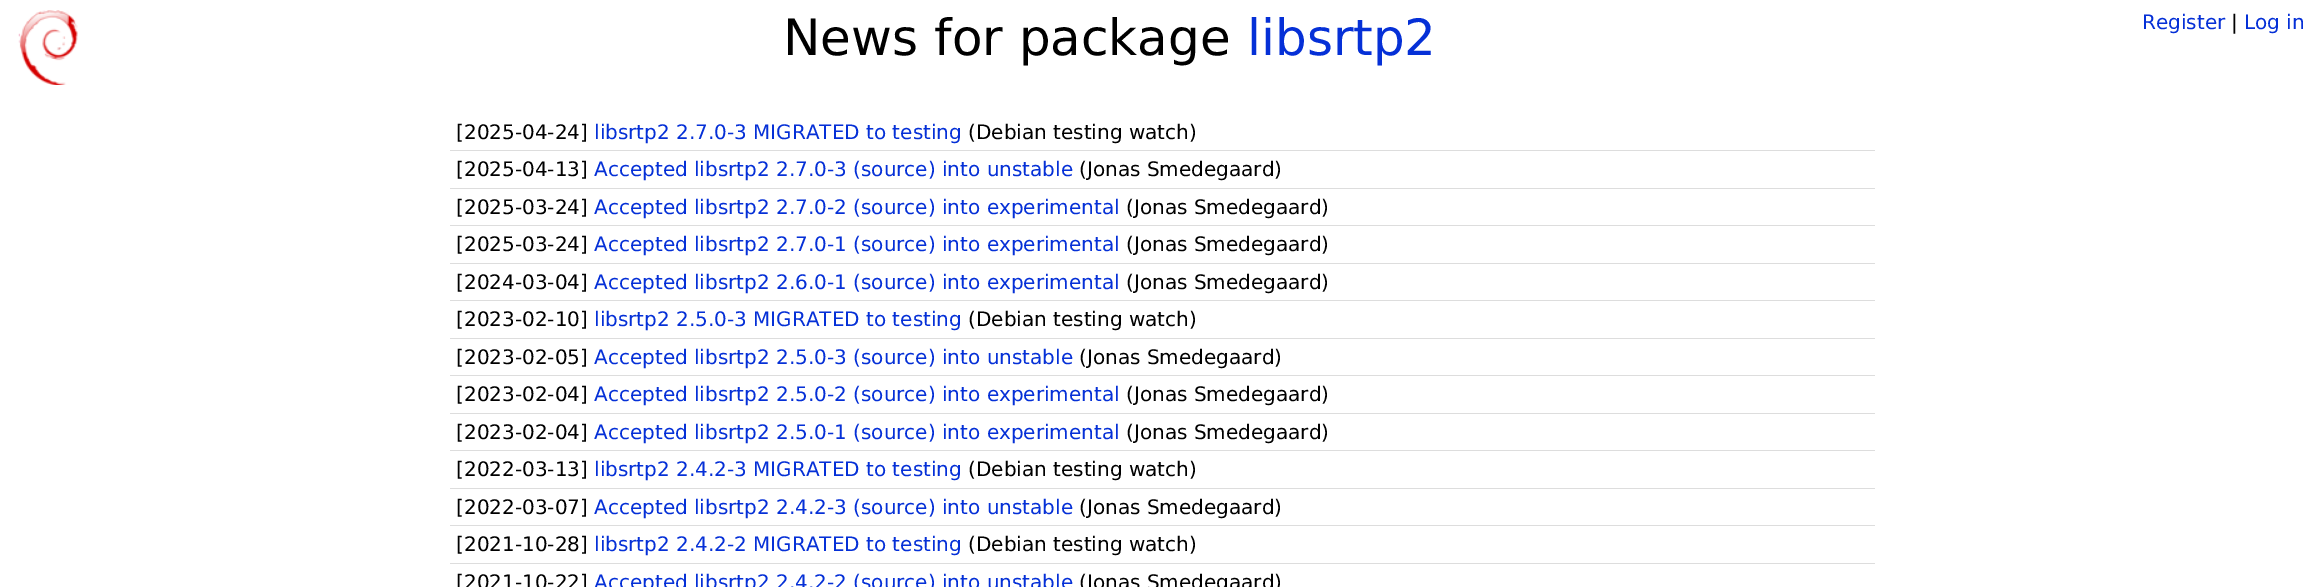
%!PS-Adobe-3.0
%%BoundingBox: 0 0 2323 587
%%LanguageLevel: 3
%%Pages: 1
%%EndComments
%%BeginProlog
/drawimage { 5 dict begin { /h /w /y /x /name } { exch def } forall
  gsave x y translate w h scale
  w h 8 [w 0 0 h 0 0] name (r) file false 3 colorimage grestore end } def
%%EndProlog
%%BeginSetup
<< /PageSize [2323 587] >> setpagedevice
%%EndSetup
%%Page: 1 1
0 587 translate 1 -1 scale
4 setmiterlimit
1 setgray
0 0 2323 587 rectfill
(images/1.raw) 18 10 60 75 drawimage
0.867 setgray
450 150 1425 1 rectfill
450 188 1425 1 rectfill
450 225 1425 1 rectfill
450 263 1425 1 rectfill
450 300 1425 1 rectfill
450 338 1425 1 rectfill
450 375 1425 1 rectfill
450 413 1425 1 rectfill
450 450 1425 1 rectfill
450 488 1425 1 rectfill
450 525 1425 1 rectfill
450 563 1425 1 rectfill
/DejaVuSans-Regular [50 0 0 -50 0 0] selectfont
0 setgray
783 55 moveto (News for package) show
0.02 0.188 0.843 setrgbcolor
1247 55 moveto (libsrtp2) show
/DejaVuSans-Regular [20 0 0 -20 0 0] selectfont
2142 29 moveto (Register) show
0 setgray
2231 29 moveto (|) show
0.02 0.188 0.843 setrgbcolor
2244 29 moveto (Log in) show
0 setgray
456 139 moveto ([2025-04-24]) show
0.02 0.188 0.843 setrgbcolor
594 139 moveto (libsrtp2 2.7.0-3 MIGRATED to testing) show
0 setgray
968 139 moveto (\(Debian testing watch\)) show
456 176 moveto ([2025-04-13]) show
0.02 0.188 0.843 setrgbcolor
594 176 moveto (Accepted libsrtp2 2.7.0-3 \(source\) into unstable) show
0 setgray
1079 176 moveto (\(Jonas Smedegaard\)) show
456 214 moveto ([2025-03-24]) show
0.02 0.188 0.843 setrgbcolor
594 214 moveto (Accepted libsrtp2 2.7.0-2 \(source\) into experimental) show
0 setgray
1126 214 moveto (\(Jonas Smedegaard\)) show
456 251 moveto ([2025-03-24]) show
0.02 0.188 0.843 setrgbcolor
594 251 moveto (Accepted libsrtp2 2.7.0-1 \(source\) into experimental) show
0 setgray
1126 251 moveto (\(Jonas Smedegaard\)) show
456 289 moveto ([2024-03-04]) show
0.02 0.188 0.843 setrgbcolor
594 289 moveto (Accepted libsrtp2 2.6.0-1 \(source\) into experimental) show
0 setgray
1126 289 moveto (\(Jonas Smedegaard\)) show
456 326 moveto ([2023-02-10]) show
0.02 0.188 0.843 setrgbcolor
594 326 moveto (libsrtp2 2.5.0-3 MIGRATED to testing) show
0 setgray
968 326 moveto (\(Debian testing watch\)) show
456 364 moveto ([2023-02-05]) show
0.02 0.188 0.843 setrgbcolor
594 364 moveto (Accepted libsrtp2 2.5.0-3 \(source\) into unstable) show
0 setgray
1079 364 moveto (\(Jonas Smedegaard\)) show
456 401 moveto ([2023-02-04]) show
0.02 0.188 0.843 setrgbcolor
594 401 moveto (Accepted libsrtp2 2.5.0-2 \(source\) into experimental) show
0 setgray
1126 401 moveto (\(Jonas Smedegaard\)) show
456 439 moveto ([2023-02-04]) show
0.02 0.188 0.843 setrgbcolor
594 439 moveto (Accepted libsrtp2 2.5.0-1 \(source\) into experimental) show
0 setgray
1126 439 moveto (\(Jonas Smedegaard\)) show
456 476 moveto ([2022-03-13]) show
0.02 0.188 0.843 setrgbcolor
594 476 moveto (libsrtp2 2.4.2-3 MIGRATED to testing) show
0 setgray
968 476 moveto (\(Debian testing watch\)) show
456 514 moveto ([2022-03-07]) show
0.02 0.188 0.843 setrgbcolor
594 514 moveto (Accepted libsrtp2 2.4.2-3 \(source\) into unstable) show
0 setgray
1079 514 moveto (\(Jonas Smedegaard\)) show
456 551 moveto ([2021-10-28]) show
0.02 0.188 0.843 setrgbcolor
594 551 moveto (libsrtp2 2.4.2-2 MIGRATED to testing) show
0 setgray
968 551 moveto (\(Debian testing watch\)) show
456 589 moveto ([2021-10-22]) show
0.02 0.188 0.843 setrgbcolor
594 589 moveto (Accepted libsrtp2 2.4.2-2 \(source\) into unstable) show
0 setgray
1079 589 moveto (\(Jonas Smedegaard\)) show
showpage
%%EOF
